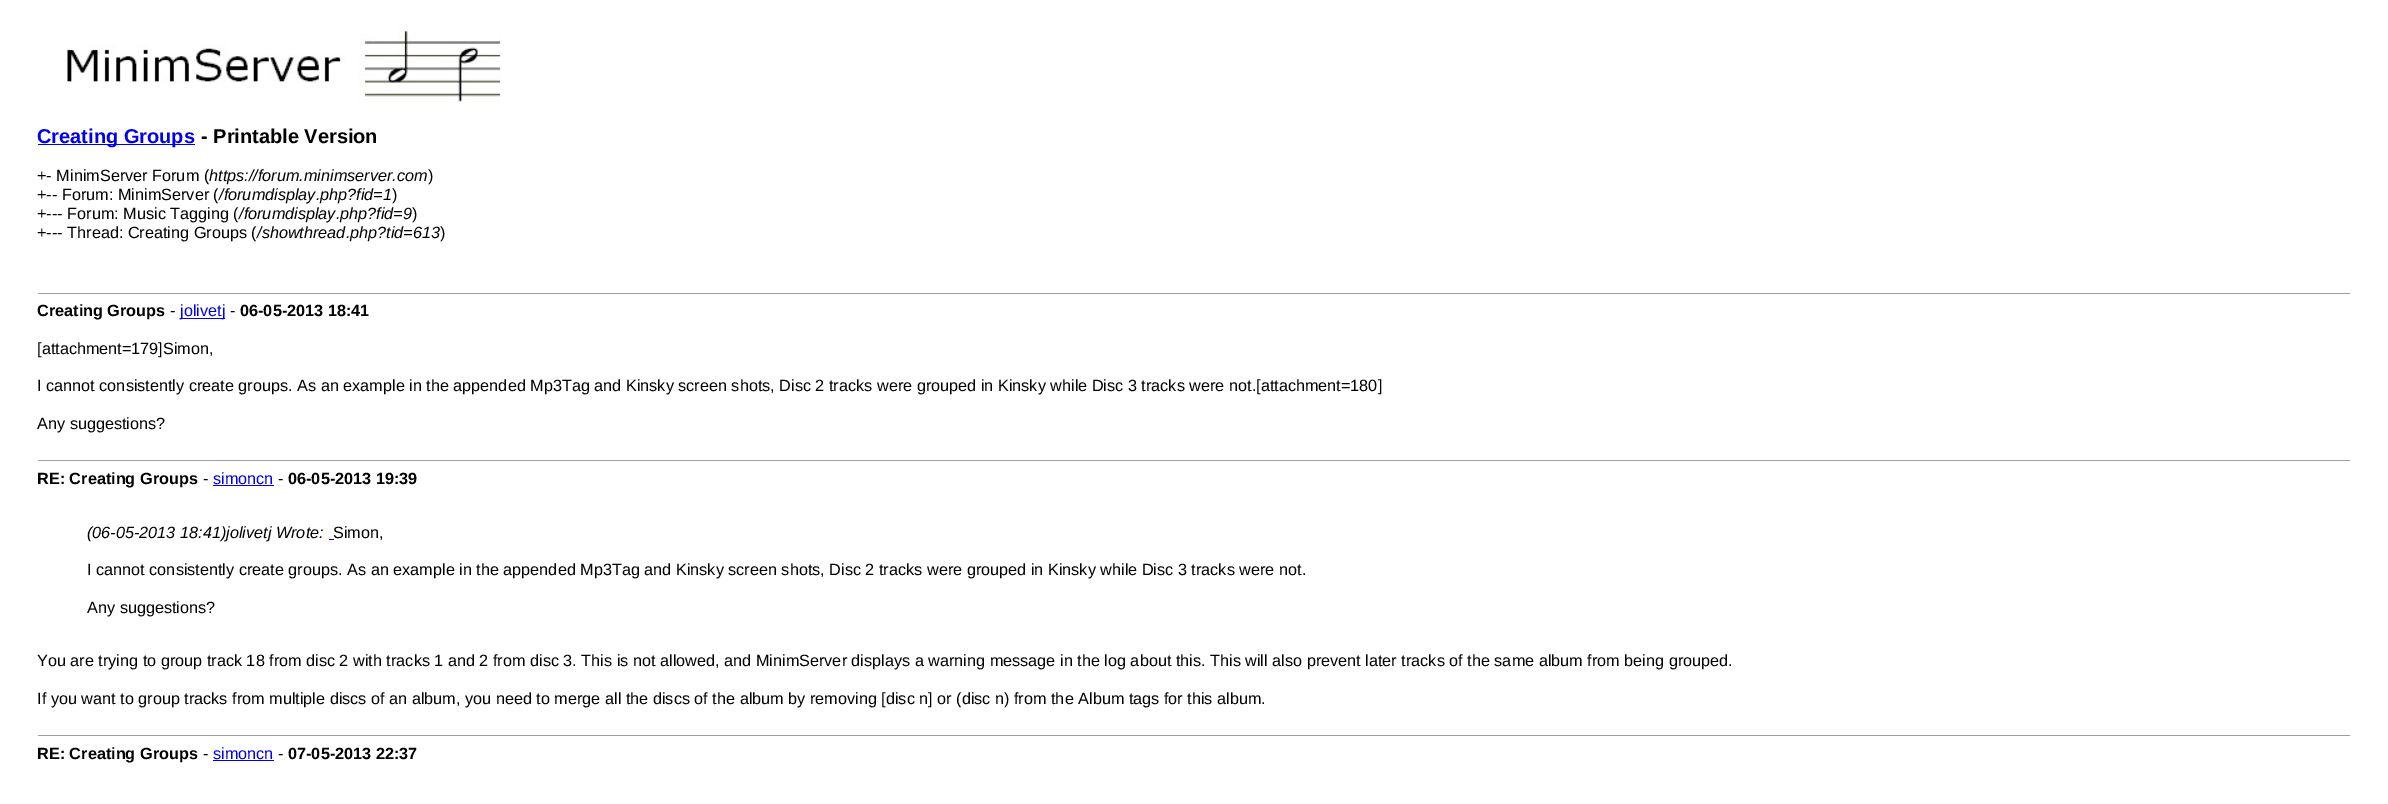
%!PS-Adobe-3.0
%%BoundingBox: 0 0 2388 804
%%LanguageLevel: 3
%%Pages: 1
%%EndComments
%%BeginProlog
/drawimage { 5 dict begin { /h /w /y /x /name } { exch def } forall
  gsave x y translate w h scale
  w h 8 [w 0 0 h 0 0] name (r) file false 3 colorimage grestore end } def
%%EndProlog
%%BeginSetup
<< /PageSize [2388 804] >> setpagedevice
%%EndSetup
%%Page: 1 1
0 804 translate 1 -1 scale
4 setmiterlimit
1 setgray
0 0 2388 804 rectfill
(images/1.raw) 67 28 434 76 drawimage
0 0 0.933 setrgbcolor
38 144 157 1 rectfill
0.624 setgray
38 293 2313 1 rectfill
0.933 setgray
2350 293 1 1 rectfill
0 0 0.933 setrgbcolor
180 318 45 1 rectfill
0.624 setgray
38 460 2313 1 rectfill
0.933 setgray
2350 460 1 1 rectfill
0 0 0.933 setrgbcolor
213 485 61 1 rectfill
329 539 5 1 rectfill
0.624 setgray
38 735 2313 1 rectfill
0.933 setgray
2350 735 1 1 rectfill
0 0 0.933 setrgbcolor
213 760 61 1 rectfill
/LiberationSans-Bold [20 0 0 -20 0 0] selectfont
37 143 moveto (Creating Groups) show
0 setgray
201 143 moveto (- Printable Version) show
/LiberationSans-Regular [16.25 0 0 -16.25 0 0] selectfont
37 181 moveto (+- MinimServer Forum \() show
/LiberationSans-Italic [16.25 0 0 -16.25 0 0] selectfont
209 181 moveto (https://forum.minimserver.com) show
/LiberationSans-Regular [16.25 0 0 -16.25 0 0] selectfont
428 181 moveto (\)) show
37 200 moveto (+-- Forum: MinimServer \() show
/LiberationSans-Italic [16.25 0 0 -16.25 0 0] selectfont
219 200 moveto (/forumdisplay.php?fid=1) show
/LiberationSans-Regular [16.25 0 0 -16.25 0 0] selectfont
392 200 moveto (\)) show
37 219 moveto (+--- Forum: Music Tagging \() show
/LiberationSans-Italic [16.25 0 0 -16.25 0 0] selectfont
239 219 moveto (/forumdisplay.php?fid=9) show
/LiberationSans-Regular [16.25 0 0 -16.25 0 0] selectfont
412 219 moveto (\)) show
37 238 moveto (+--- Thread: Creating Groups \() show
/LiberationSans-Italic [16.25 0 0 -16.25 0 0] selectfont
257 238 moveto (/showthread.php?tid=613) show
/LiberationSans-Regular [16.25 0 0 -16.25 0 0] selectfont
440 238 moveto (\)) show
/LiberationSans-Bold [16.25 0 0 -16.25 0 0] selectfont
37 316 moveto (Creating Groups) show
/LiberationSans-Regular [16.25 0 0 -16.25 0 0] selectfont
170 316 moveto (-) show
0 0 0.933 setrgbcolor
180 316 moveto (jolivetj) show
0 setgray
230 316 moveto (-) show
/LiberationSans-Bold [16.25 0 0 -16.25 0 0] selectfont
240 316 moveto (06-05-2013 18:41) show
/LiberationSans-Regular [16.25 0 0 -16.25 0 0] selectfont
37 354 moveto ([attachment=179]Simon,) show
37 391 moveto (I cannot consistently create groups. As an example in the appended Mp3Tag and Kinsky screen shots, Disc 2 tracks were grouped in Kinsky while Disc 3 tracks were not.[attachment=180]) show
37 429 moveto (Any suggestions?) show
/LiberationSans-Bold [16.25 0 0 -16.25 0 0] selectfont
37 484 moveto (RE: Creating Groups) show
/LiberationSans-Regular [16.25 0 0 -16.25 0 0] selectfont
203 484 moveto (-) show
0 0 0.933 setrgbcolor
213 484 moveto (simoncn) show
0 setgray
278 484 moveto (-) show
/LiberationSans-Bold [16.25 0 0 -16.25 0 0] selectfont
288 484 moveto (06-05-2013 19:39) show
/LiberationSans-Italic [16.25 0 0 -16.25 0 0] selectfont
87 538 moveto (\(06-05-2013 18:41\)jolivetj Wrote:) show
/LiberationSans-Regular [16.25 0 0 -16.25 0 0] selectfont
333 538 moveto (Simon,) show
87 575 moveto (I cannot consistently create groups. As an example in the appended Mp3Tag and Kinsky screen shots, Disc 2 tracks were grouped in Kinsky while Disc 3 tracks were not.) show
87 613 moveto (Any suggestions?) show
37 666 moveto (You are trying to group track 18 from disc 2 with tracks 1 and 2 from disc 3. This is not allowed, and MinimServer displays a warning message in the log about this. This will also prevent later tracks of the same album from being grouped.) show
37 704 moveto (If you want to group tracks from multiple discs of an album, you need to merge all the discs of the album by removing [disc n] or \(disc n\) from the Album tags for this album.) show
/LiberationSans-Bold [16.25 0 0 -16.25 0 0] selectfont
37 759 moveto (RE: Creating Groups) show
/LiberationSans-Regular [16.25 0 0 -16.25 0 0] selectfont
203 759 moveto (-) show
0 0 0.933 setrgbcolor
213 759 moveto (simoncn) show
0 setgray
278 759 moveto (-) show
/LiberationSans-Bold [16.25 0 0 -16.25 0 0] selectfont
288 759 moveto (07-05-2013 22:37) show
showpage
%%EOF
